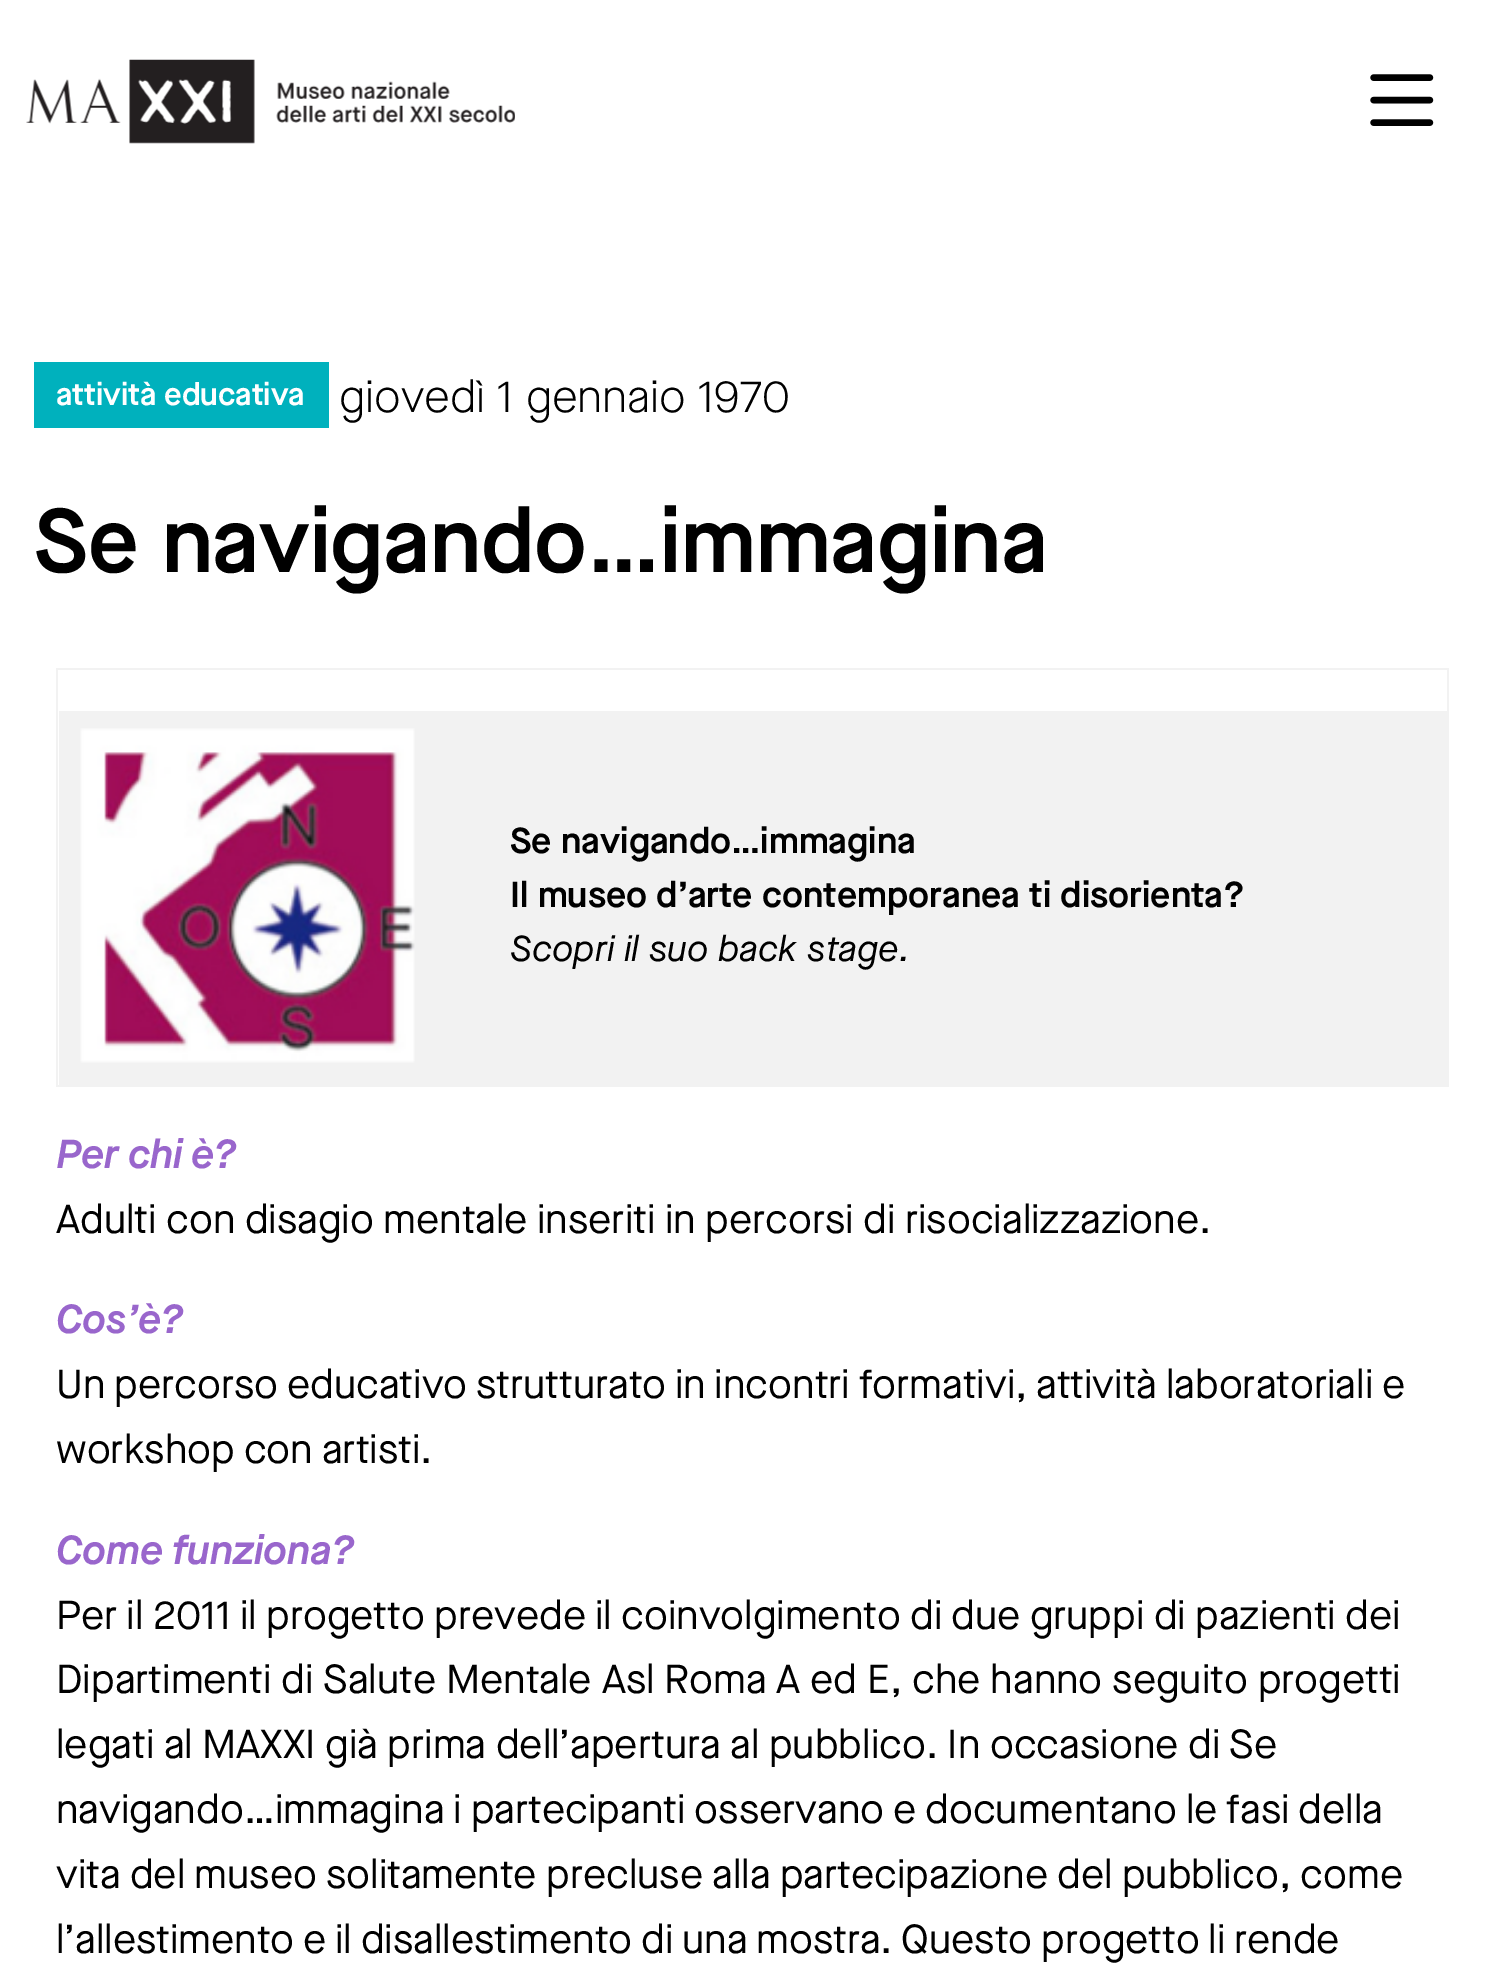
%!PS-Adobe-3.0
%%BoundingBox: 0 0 1505 1984
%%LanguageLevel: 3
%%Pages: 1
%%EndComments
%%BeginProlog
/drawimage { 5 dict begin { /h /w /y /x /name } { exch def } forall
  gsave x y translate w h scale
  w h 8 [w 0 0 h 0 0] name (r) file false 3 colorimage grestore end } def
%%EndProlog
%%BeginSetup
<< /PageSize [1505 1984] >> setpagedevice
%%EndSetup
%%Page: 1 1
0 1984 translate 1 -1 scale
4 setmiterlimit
1 setgray
0 0 1505 1984 rectfill
(images/1.raw) 26 59 489 85 drawimage
(images/2.raw) 1370 74 64 52 drawimage
0 0.694 0.741 setrgbcolor
34 362 295 66 rectfill
0.949 setgray
56 668 1393 2 rectfill
1447 668 2 419 rectfill
56 1085 1393 2 rectfill
56 668 2 419 rectfill
59 711 1388 374 rectfill
(images/3.raw) 80 728 335 335 drawimage
/MaisonNeue-SemiBold [31.5 0 0 -31.5 0 0] selectfont
1 setgray
56 405 moveto (attività educativa) show
/MaisonNeue-Light [45 0 0 -45 0 0] selectfont
0 setgray
339 412 moveto (giovedì 1 gennaio 1970) show
/MaisonNeue-SemiBold [90 0 0 -90 0 0] selectfont
34 572 moveto (Se navigando…immagina) show
/MaisonNeue-SemiBold [36 0 0 -36 0 0] selectfont
510 853 moveto (Se navigando…immagina) show
510 907 moveto (Il museo d’arte contemporanea ti disorienta?) show
/MaisonNeue-Italic [36 0 0 -36 0 0] selectfont
510 961 moveto (Scopri il suo back stage.) show
/MaisonNeue-SemiBoldItalic [40.5 0 0 -40.5 0 0] selectfont
0.6 0.4 0.8 setrgbcolor
56 1168 moveto -2 0 32 (Per chi è?) widthshow
/MaisonNeue-Regular [40.5 0 0 -40.5 0 0] selectfont
0 setgray
56 1233 moveto -1.5 0 32 (Adulti con disagio mentale inseriti in percorsi di risocializzazione.) widthshow
/MaisonNeue-SemiBoldItalic [40.5 0 0 -40.5 0 0] selectfont
0.6 0.4 0.8 setrgbcolor
56 1333 moveto (Cos’è?) show
/MaisonNeue-Regular [40.5 0 0 -40.5 0 0] selectfont
0 setgray
56 1398 moveto -2.25 0 32 (Un percorso educativo strutturato in incontri formativi, attività laboratoriali e) widthshow
56 1463 moveto -2 0 32 (workshop con artisti.) widthshow
/MaisonNeue-SemiBoldItalic [40.5 0 0 -40.5 0 0] selectfont
0.6 0.4 0.8 setrgbcolor
56 1564 moveto -2 0 32 (Come funziona?) widthshow
/MaisonNeue-Regular [40.5 0 0 -40.5 0 0] selectfont
0 setgray
56 1629 moveto -1.75 0 32 (Per il 2011 il progetto prevede il coinvolgimento di due gruppi di pazienti dei) widthshow
56 1693 moveto -1 0 32 (Dipartimenti di Salute Mentale Asl Roma A ed E, che hanno seguito progetti) widthshow
56 1758 moveto -1.4 0 32 (legati al MAXXI già prima dell’apertura al pubblico. In occasione di Se) widthshow
56 1823 moveto -2 0 32 (navigando…immagina i partecipanti osservano e documentano le fasi della) widthshow
56 1888 moveto -1.75 0 32 (vita del museo solitamente precluse alla partecipazione del pubblico, come) widthshow
56 1953 moveto -2.25 0 32 (l’allestimento e il disallestimento di una mostra. Questo progetto li rende) widthshow
showpage
%%EOF
